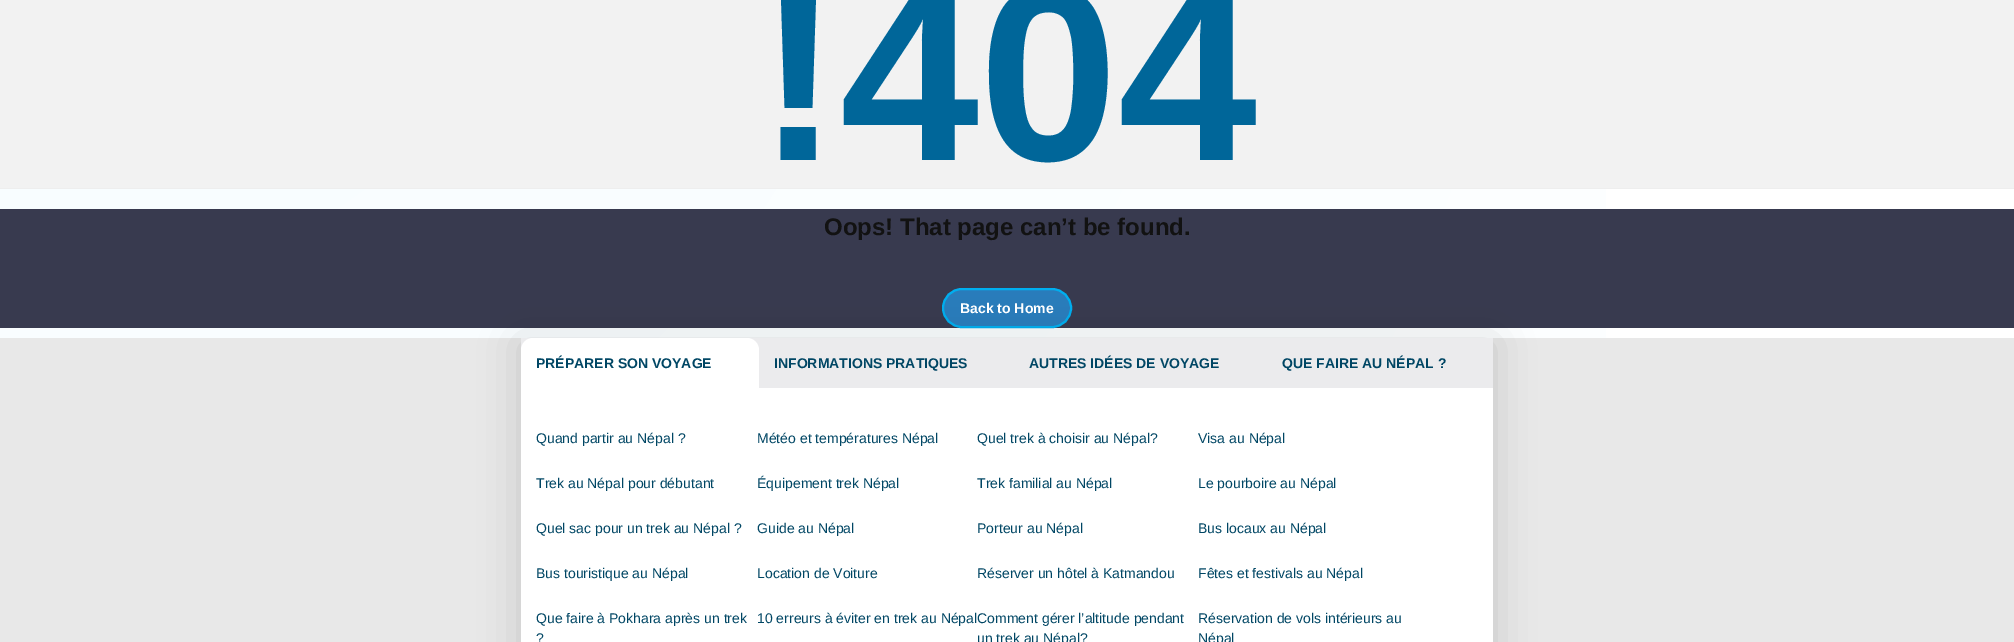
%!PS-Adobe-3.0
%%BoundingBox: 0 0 2014 642
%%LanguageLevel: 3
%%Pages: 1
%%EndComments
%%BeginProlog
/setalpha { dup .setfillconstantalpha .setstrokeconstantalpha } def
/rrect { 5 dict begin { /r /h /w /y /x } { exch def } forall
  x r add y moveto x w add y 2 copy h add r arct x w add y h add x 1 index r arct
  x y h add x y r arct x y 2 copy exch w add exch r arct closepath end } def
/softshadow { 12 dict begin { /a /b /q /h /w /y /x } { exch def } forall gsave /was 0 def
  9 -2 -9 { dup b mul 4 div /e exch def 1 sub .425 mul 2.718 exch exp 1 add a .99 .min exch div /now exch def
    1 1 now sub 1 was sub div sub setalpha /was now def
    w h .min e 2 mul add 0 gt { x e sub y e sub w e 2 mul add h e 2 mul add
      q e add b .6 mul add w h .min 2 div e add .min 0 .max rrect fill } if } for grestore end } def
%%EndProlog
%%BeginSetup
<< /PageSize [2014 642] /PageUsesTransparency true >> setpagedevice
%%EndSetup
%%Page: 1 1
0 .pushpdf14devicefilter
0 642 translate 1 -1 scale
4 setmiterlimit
1 setgray
0 0 2014 642 rectfill
gsave newpath 0 189 moveto 1606 189 lineto 1606 338 lineto 0 338 lineto closepath clip newpath 0 -303 translate 2452 2452 scale
<< /ShadingType 3 /ColorSpace /DeviceRGB /Coords [0 0 0 0 0 1] /Extend [true true] /Function << /FunctionType 2 /Domain [0 1] /C0 [0.969 0.992 1] /C1 [1 1 1] /N 1 >> >> shfill grestore
0.949 setgray
0 0 2014 188 rectfill
0.933 setgray
0 188 2014 1 rectfill
0.22 0.227 0.31 setrgbcolor
0 209 2014 119 rectfill
0.161 0.486 0.733 setrgbcolor
943 289 128 38 19 rrect gsave fill grestore
0 0.682 0.937 setrgbcolor
2 setlinewidth
stroke
0.91 setgray
0 338 2014 304 rectfill
0 setgray
521 342 972 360 0 20 0.15 softshadow
1 setgray
521 388 972 254 rectfill
0.922 0.922 0.929 setrgbcolor
521 338 972 50 rectfill
1 setgray
newpath 533 338 moveto 747 338 lineto 753.5 338 759 343.5 759 350 curveto 759 388 lineto 521 388 lineto 521 350 lineto 521 343.5 526.5 338 533 338 curveto closepath fill
/LiberationSans-Bold [250 0 0 -250 0 0] selectfont
0 0.4 0.6 setrgbcolor
757 160 moveto (!404) show
/LiberationSans-Bold [24 0 0 -24 0 0] selectfont
0.071 setgray
824 235 moveto (Oops! That page can’t be found.) show
/LiberationSans-Bold [14 0 0 -14 0 0] selectfont
1 setgray
960 313 moveto (Back to Home) show
0 0.275 0.392 setrgbcolor
536 368 moveto (PRÉPARER SON VOYAGE) show
774 368 moveto (INFORMATIONS PRATIQUES) show
1029 368 moveto (AUTRES IDÉES DE VOYAGE) show
1282 368 moveto (QUE FAIRE AU NÉPAL ?) show
/LiberationSans-Regular [14 0 0 -14 0 0] selectfont
536 443 moveto (Quand partir au Népal ?) show
757 443 moveto (Météo et températures Népal) show
977 443 moveto (Quel trek à choisir au Népal?) show
1198 443 moveto (Visa au Népal) show
536 488 moveto (Trek au Népal pour débutant) show
757 488 moveto (Équipement trek Népal) show
977 488 moveto (Trek familial au Népal) show
1198 488 moveto (Le pourboire au Népal) show
536 533 moveto (Quel sac pour un trek au Népal ?) show
757 533 moveto (Guide au Népal) show
977 533 moveto (Porteur au Népal) show
1198 533 moveto (Bus locaux au Népal) show
536 578 moveto (Bus touristique au Népal) show
757 578 moveto (Location de Voiture) show
977 578 moveto (Réserver un hôtel à Katmandou) show
1198 578 moveto (Fêtes et festivals au Népal) show
536 623 moveto (Que faire à Pokhara après un trek) show
536 643 moveto (?) show
757 623 moveto (10 erreurs à éviter en trek au NépalComment gérer l’altitude pendant) show
1198 623 moveto (Réservation de vols intérieurs au) show
1198 643 moveto (Népal) show
977 643 moveto (un trek au Népal?) show
.poppdf14devicefilter showpage
%%EOF
